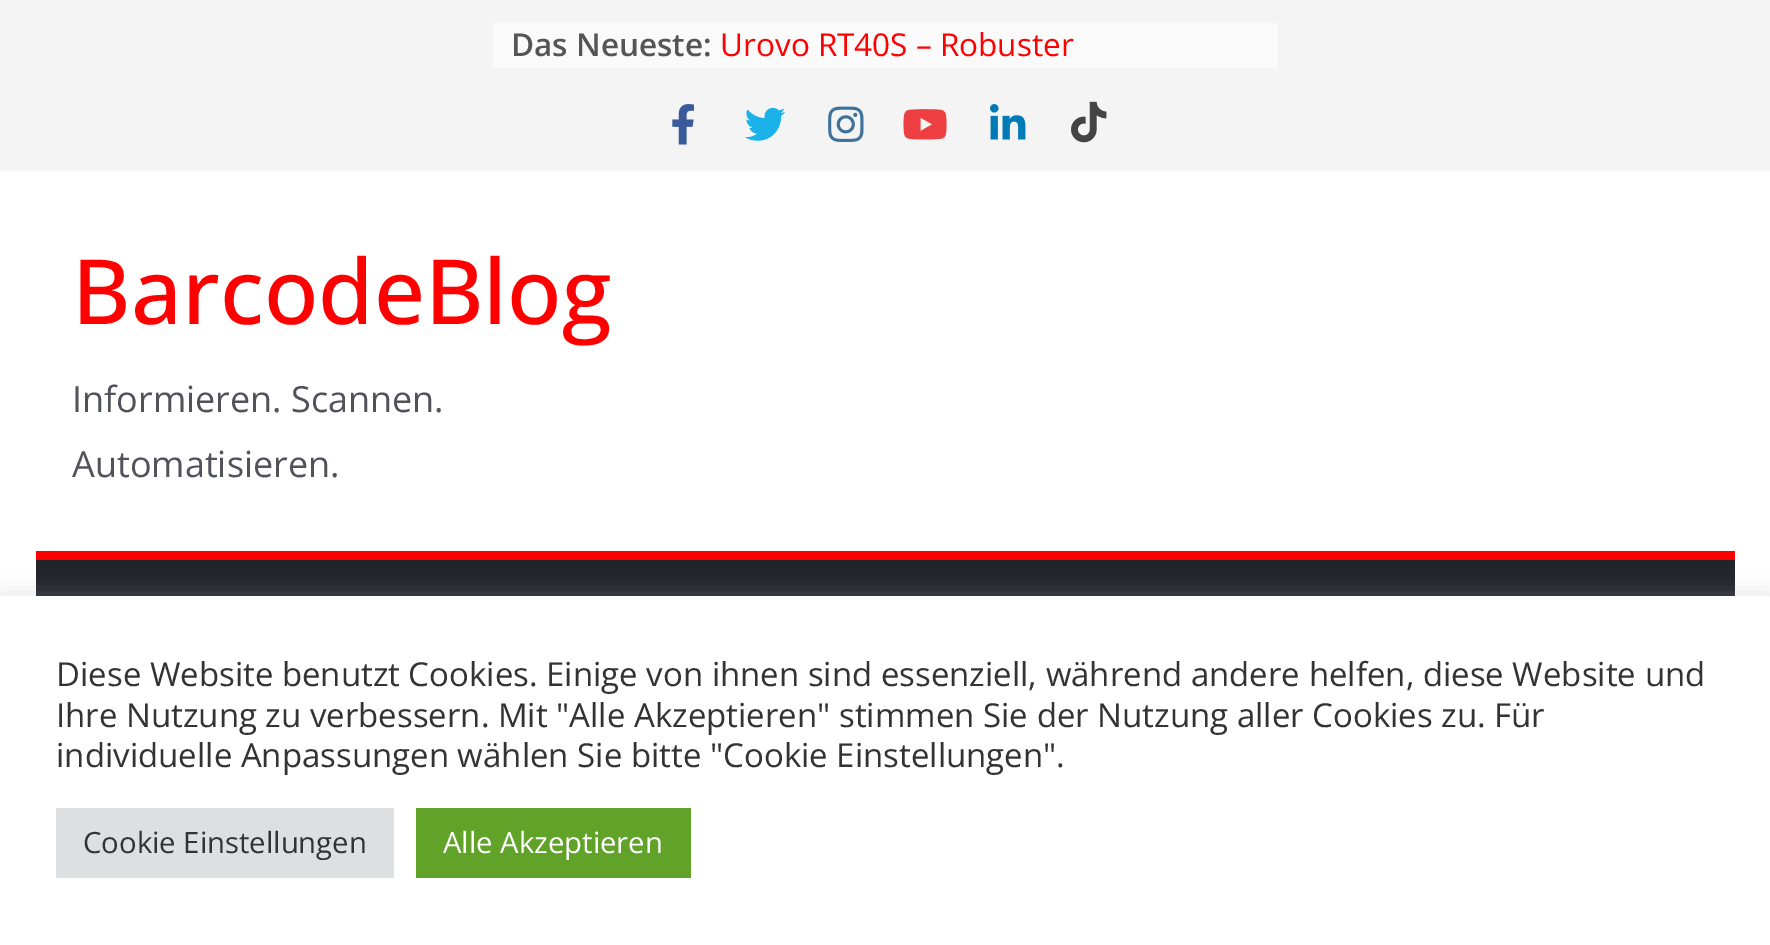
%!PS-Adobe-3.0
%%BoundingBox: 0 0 1770 945
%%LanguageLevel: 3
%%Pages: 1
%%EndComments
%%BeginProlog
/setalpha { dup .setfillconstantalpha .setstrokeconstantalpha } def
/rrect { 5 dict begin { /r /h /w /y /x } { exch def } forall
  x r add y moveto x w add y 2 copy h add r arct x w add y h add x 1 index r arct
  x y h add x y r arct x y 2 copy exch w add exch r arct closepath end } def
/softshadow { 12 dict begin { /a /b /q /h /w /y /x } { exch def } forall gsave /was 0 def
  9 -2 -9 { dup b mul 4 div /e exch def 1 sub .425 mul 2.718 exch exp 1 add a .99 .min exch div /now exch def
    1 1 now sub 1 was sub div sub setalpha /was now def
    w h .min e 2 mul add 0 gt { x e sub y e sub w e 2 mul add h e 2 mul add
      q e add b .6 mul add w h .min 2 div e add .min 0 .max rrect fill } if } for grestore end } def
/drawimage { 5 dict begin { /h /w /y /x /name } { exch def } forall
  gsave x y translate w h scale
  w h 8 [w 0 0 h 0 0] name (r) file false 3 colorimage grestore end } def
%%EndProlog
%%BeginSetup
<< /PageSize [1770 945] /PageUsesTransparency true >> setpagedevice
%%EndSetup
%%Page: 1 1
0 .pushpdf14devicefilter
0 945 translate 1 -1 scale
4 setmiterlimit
1 setgray
0 0 1770 945 rectfill
0 setgray
0 0 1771 169 0 2 0.1 softshadow
0.957 0.957 0.961 setrgbcolor
0 0 1770 169 rectfill
0.98 setgray
493 23 785 45 rectfill
(images/1.raw) 672 104 22 41 drawimage
(images/2.raw) 745 107 41 34 drawimage
(images/3.raw) 828 106 36 36 drawimage
(images/4.raw) 903 109 44 31 drawimage
(images/5.raw) 990 104 36 36 drawimage
(images/6.raw) 1071 101 36 42 drawimage
0.129 0.145 0.161 setrgbcolor
36 560 1699 36 rectfill
1 0 0 setrgbcolor
36 551 1699 9 rectfill
0.675 0.671 0.671 setrgbcolor
0 594 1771 349 0 11 0.3 softshadow
1 setgray
0 596 1770 349 rectfill
0.871 0.875 0.878 setrgbcolor
56 808 338 70 rectfill
0.38 0.635 0.161 setrgbcolor
416 808 275 70 rectfill
/OpenSans-SemiBold [31.5 0 0 -31.5 0 0] selectfont
0.333 setgray
511 56 moveto (Das Neueste:) show
/OpenSans-Regular [31.5 0 0 -31.5 0 0] selectfont
1 0 0 setrgbcolor
720 56 moveto (Urovo RT40S – Robuster) show
/OpenSans-Medium [90 0 0 -90 0 0] selectfont
72 324 moveto (BarcodeBlog) show
/OpenSans-Regular [36 0 0 -36 0 0] selectfont
0.322 0.322 0.357 setrgbcolor
72 412 moveto (Informieren. Scannen.) show
72 477 moveto (Automatisieren.) show
/OpenSans-Regular [33 0 0 -33 0 0] selectfont
0.2 setgray
56 686 moveto (Diese Website benutzt Cookies. Einige von ihnen sind essenziell, während andere helfen, diese Website und) show
56 727 moveto (Ihre Nutzung zu verbessern. Mit "Alle Akzeptieren" stimmen Sie der Nutzung aller Cookies zu. Für) show
56 767 moveto (individuelle Anpassungen wählen Sie bitte "Cookie Einstellungen".) show
/OpenSans-Regular [29.25 0 0 -29.25 0 0] selectfont
83 853 moveto (Cookie Einstellungen) show
1 setgray
443 853 moveto (Alle Akzeptieren) show
.poppdf14devicefilter showpage
%%EOF
